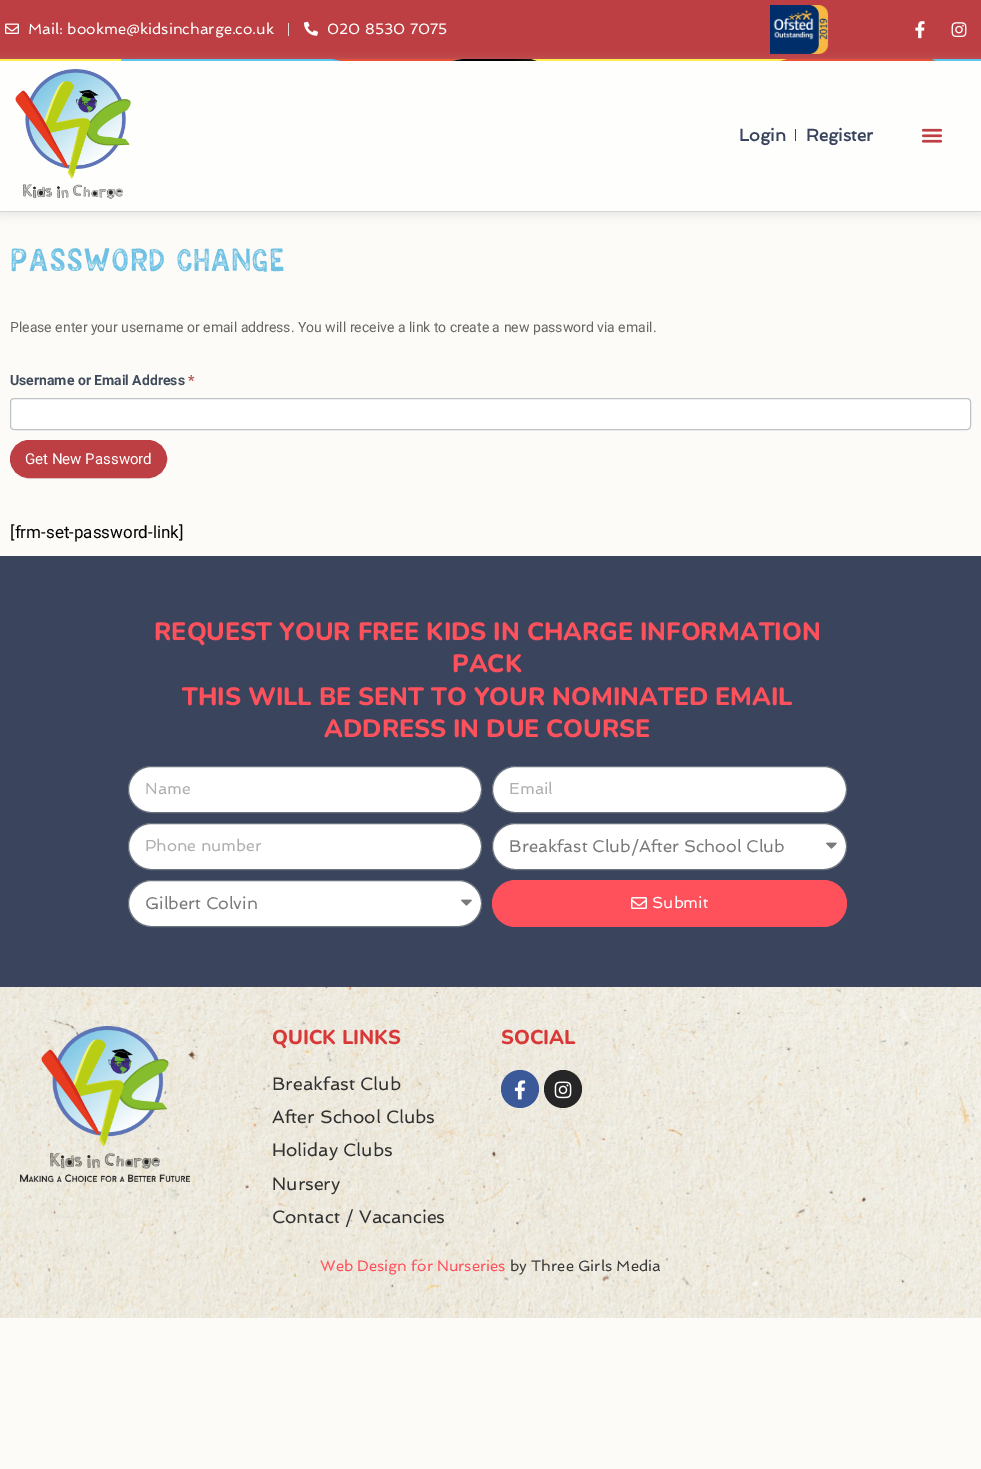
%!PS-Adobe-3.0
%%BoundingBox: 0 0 981 1469
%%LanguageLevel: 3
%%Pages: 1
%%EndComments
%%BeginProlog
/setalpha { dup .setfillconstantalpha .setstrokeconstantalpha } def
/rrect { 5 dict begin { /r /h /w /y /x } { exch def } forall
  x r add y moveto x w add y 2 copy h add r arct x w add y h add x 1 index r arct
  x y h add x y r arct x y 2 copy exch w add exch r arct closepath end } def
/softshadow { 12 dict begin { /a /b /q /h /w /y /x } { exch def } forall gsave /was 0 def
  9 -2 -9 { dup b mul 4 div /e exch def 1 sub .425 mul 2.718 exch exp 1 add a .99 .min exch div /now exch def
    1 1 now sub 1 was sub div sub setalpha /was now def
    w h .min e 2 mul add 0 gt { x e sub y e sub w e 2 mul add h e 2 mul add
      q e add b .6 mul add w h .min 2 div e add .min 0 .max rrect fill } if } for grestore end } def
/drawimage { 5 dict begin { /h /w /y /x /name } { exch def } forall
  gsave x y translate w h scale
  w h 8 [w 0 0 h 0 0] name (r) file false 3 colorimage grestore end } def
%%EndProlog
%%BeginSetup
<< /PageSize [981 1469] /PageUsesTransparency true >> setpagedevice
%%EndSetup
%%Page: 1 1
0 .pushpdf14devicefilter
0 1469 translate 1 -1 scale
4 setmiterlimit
0.988 0.984 0.969 setrgbcolor
0 0 981 1469 rectfill
0.741 0.247 0.263 setrgbcolor
0 0 981 59 rectfill
(images/1.raw) 5 23 14 11 drawimage
0.867 setgray
288 23 1 13 rectfill
(images/2.raw) 304 21 14 15 drawimage
(images/3.raw) 770 5 59 49 drawimage
(images/4.raw) 915 21 10 18 drawimage
(images/5.raw) 951 22 16 16 drawimage
0.839 setgray
0 63 981 152 0 5 0.5 softshadow
0.996 0.996 0.992 setrgbcolor
0 61 981 150 rectfill
(images/6.raw) 0 59 981 2 drawimage
(images/7.raw) 15 69 116 130 drawimage
0.227 0.271 0.365 setrgbcolor
795 129 1 12 rectfill
(images/8.raw) 921 128 22 15 drawimage
0.839 setgray
0 211 981 1 rectfill
1 setgray
10.5 398.5 960 31 3.5 rrect gsave fill grestore
0.749 0.765 0.784 setrgbcolor
stroke
0.933 setgray
10 441 157 38 19 0.5 1 softshadow
0.741 0.247 0.263 setrgbcolor
12.5 442.5 152 33 16.5 rrect gsave fill grestore
5 setlinewidth
stroke
0.227 0.271 0.365 setrgbcolor
0 556 981 431 rectfill
1 setgray
128.5 766.5 353 46 23 rrect gsave fill grestore
0.412 0.447 0.49 setrgbcolor
1 setlinewidth
stroke
1 setgray
492.5 766.5 354 46 23 rrect gsave fill grestore
0.412 0.447 0.49 setrgbcolor
stroke
1 setgray
128.5 823.5 353 46 23 rrect gsave fill grestore
0.412 0.447 0.49 setrgbcolor
stroke
1 setgray
492.5 823.5 354 46 23 rrect gsave fill grestore
0.412 0.447 0.49 setrgbcolor
stroke
(images/9.raw) 826 842 11 7 drawimage
1 setgray
128.5 880.5 353 46 23 rrect gsave fill grestore
0.412 0.447 0.49 setrgbcolor
stroke
(images/9.raw) 461 899 11 7 drawimage
1 0.318 0.361 setrgbcolor
492 880 355 47 23.5 rrect fill
(images/10.raw) 631 897 16 12 drawimage
(images/11.raw) 0 987 981 331 drawimage
(images/12.raw) 20 1026 170 156 drawimage
0.231 0.349 0.596 setrgbcolor
newpath 520 1089 19 0 360 arc closepath fill
(images/13.raw) 514 1080 12 20 drawimage
0.149 setgray
newpath 563 1089 19 0 360 arc closepath fill
(images/14.raw) 554 1081 18 18 drawimage
/Spinnaker-Regular [15 0 0 -15 0 0] selectfont
1 setgray
28 34 moveto (Mail: bookme@kidsincharge.co.uk) show
327 34 moveto (020 8530 7075) show
/Spinnaker-Bold [17 0 0 -17 0 0] selectfont
0.227 0.271 0.365 setrgbcolor
739 141 moveto (Login) show
806 141 moveto (Register) show
/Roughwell-SemiBold [32 0 0 -32 0 0] selectfont
0.431 0.757 0.894 setrgbcolor
10 271 moveto (Password Change) show
/Roboto-Regular [14 0 0 -14 0 0] selectfont
0.4 setgray
10 332 moveto (Please enter your username or email address. You will receive a link to create a new password via email.) show
/Roboto-Bold [14 0 0 -14 0 0] selectfont
0.247 0.294 0.357 setrgbcolor
10 385 moveto (Username or Email Address) show
0.725 0.29 0.282 setrgbcolor
188 385 moveto (*) show
/Roboto-Regular [15 0 0 -15 0 0] selectfont
1 setgray
25 464 moveto (Get New Password) show
/Roboto-Regular [17 0 0 -17 0 0] selectfont
0 setgray
10 538 moveto ([frm-set-password-link]) show
/Nunito-ExtraBold [25 0 0 -25 0 0] selectfont
1 0.318 0.361 setrgbcolor
154 640 moveto (REQUEST YOUR FREE KIDS IN CHARGE INFORMATION) show
452 672 moveto (PACK) show
182 705 moveto (THIS WILL BE SENT TO YOUR NOMINATED EMAIL) show
324 737 moveto (ADDRESS IN DUE COURSE) show
/Spinnaker-Regular [16 0 0 -16 0 0] selectfont
0.686 setgray
145 794 moveto (Name) show
509 794 moveto (Email) show
145 851 moveto (Phone number) show
/Spinnaker-Regular [17 0 0 -17 0 0] selectfont
0.478 setgray
509 852 moveto (Breakfast Club/After School Club) show
145 909 moveto (Gilbert Colvin) show
/Spinnaker-Regular [16 0 0 -16 0 0] selectfont
1 setgray
652 908 moveto (Submit) show
/Nunito-ExtraBold [20 0 0 -20 0 0] selectfont
0.851 0.22 0.22 setrgbcolor
272 1044 moveto (QUICK LINKS) show
/Spinnaker-Regular [18 0 0 -18 0 0] selectfont
0.192 setgray
272 1090 moveto (Breakfast Club) show
272 1123 moveto (After School Clubs) show
272 1156 moveto (Holiday Clubs) show
272 1190 moveto (Nursery) show
272 1223 moveto (Contact / Vacancies) show
/Nunito-ExtraBold [20 0 0 -20 0 0] selectfont
0.851 0.22 0.22 setrgbcolor
501 1044 moveto (SOCIAL) show
/Spinnaker-Regular [15 0 0 -15 0 0] selectfont
1 0.318 0.361 setrgbcolor
320 1271 moveto (Web Design for Nurseries) show
0.227 setgray
510 1271 moveto (by Three Girls Media) show
.poppdf14devicefilter showpage
%%EOF
